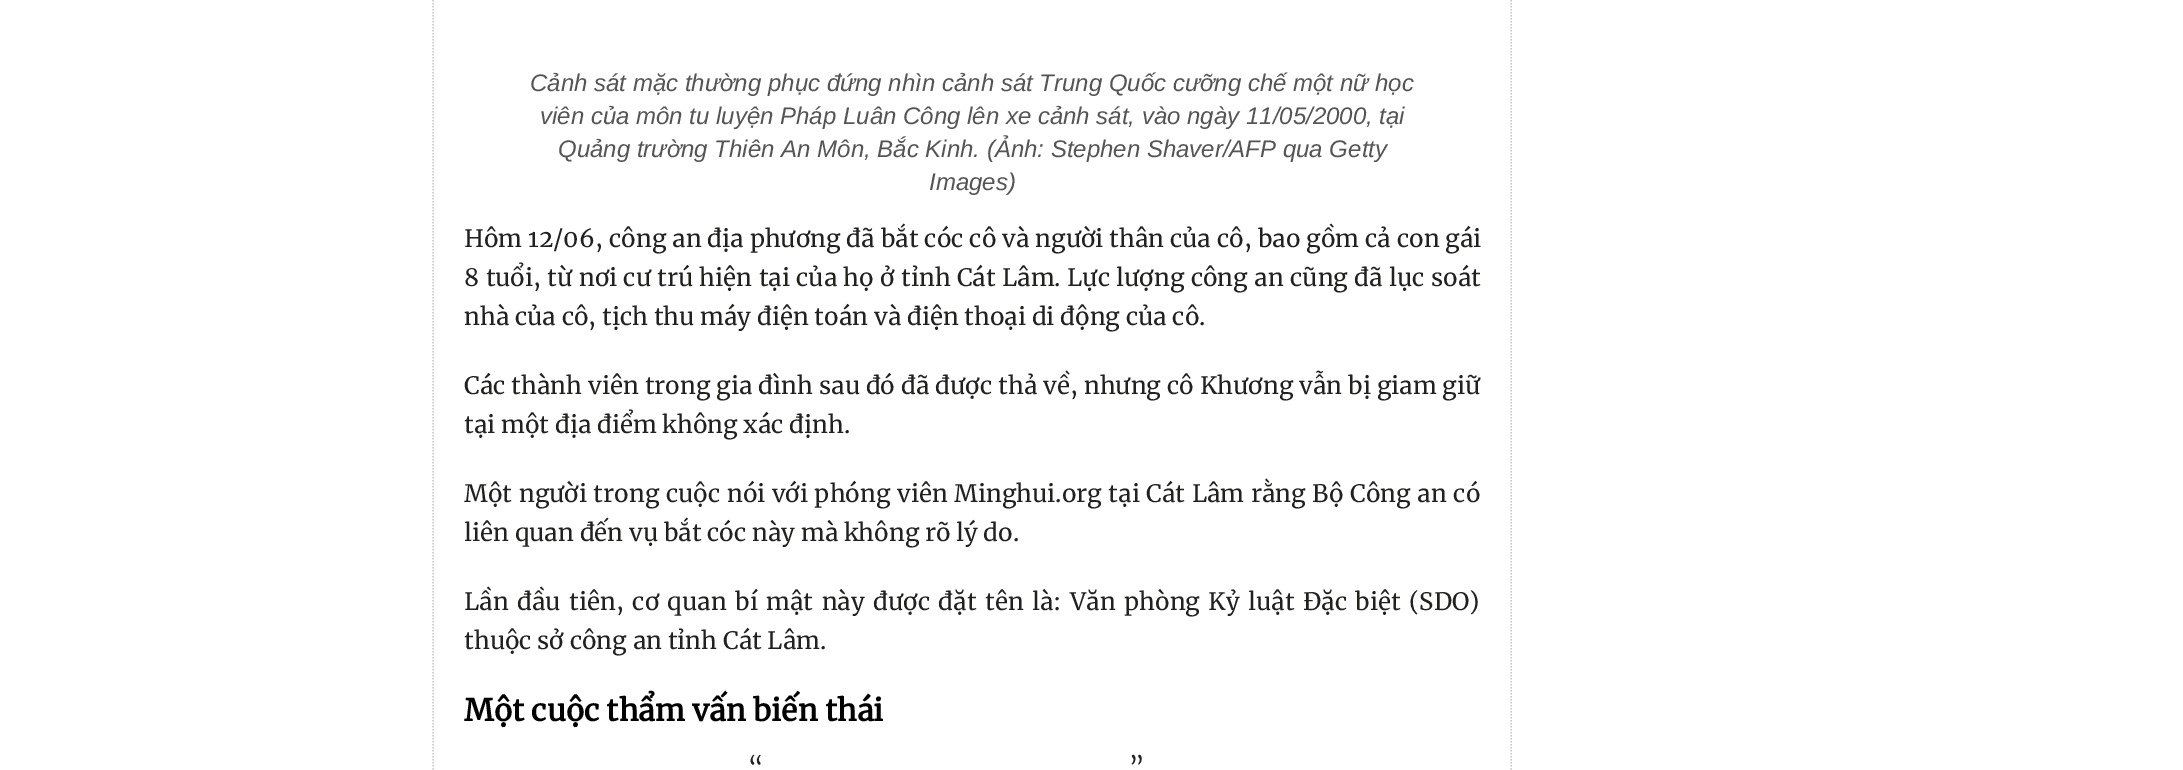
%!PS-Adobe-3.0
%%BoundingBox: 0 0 2183 770
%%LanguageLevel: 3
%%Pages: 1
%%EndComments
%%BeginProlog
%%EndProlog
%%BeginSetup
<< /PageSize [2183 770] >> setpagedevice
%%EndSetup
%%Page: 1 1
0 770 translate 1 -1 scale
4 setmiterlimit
1 setgray
0 0 2183 770 rectfill
0.8 setgray
1.5 setlinewidth
[1.5 1.5] 0 setdash
newpath 1511 -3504 moveto 1511 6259.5 lineto stroke
newpath 433 -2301 moveto 433 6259.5 lineto stroke
/LiberationSans-Italic [24 0 0 -24 0 0] selectfont
0.333 setgray
530 91 moveto (Cảnh sát mặc thường phục đứng nhìn cảnh sát Trung Quốc cưỡng chế một nữ học) show
540 124 moveto (viên của môn tu luyện Pháp Luân Công lên xe cảnh sát, vào ngày 11/05/2000, tại) show
558 157 moveto (Quảng trường Thiên An Môn, Bắc Kinh. \(Ảnh: Stephen Shaver/AFP qua Getty) show
929 190 moveto (Images\)) show
/Merriweather-Regular [24 0 0 -24 0 0] selectfont
0.129 0.129 0.122 setrgbcolor
464 247 moveto 0.2 0 32 (Hôm 12/06, công an địa phương đã bắt cóc cô và người thân của cô, bao gồm cả con gái) widthshow
464 286 moveto 0.65 0 32 (8 tuổi, từ nơi cư trú hiện tại của họ ở tỉnh Cát Lâm. Lực lượng công an cũng đã lục soát) widthshow
464 325 moveto (nhà của cô, tịch thu máy điện toán và điện thoại di động của cô.) show
464 394 moveto 0.25 0 32 (Các thành viên trong gia đình sau đó đã được thả về, nhưng cô Khương vẫn bị giam giữ) widthshow
464 433 moveto (tại một địa điểm không xác định.) show
464 502 moveto 0.9 0 32 (Một người trong cuộc nói với phóng viên Minghui.org tại Cát Lâm rằng Bộ Công an có) widthshow
464 541 moveto (liên quan đến vụ bắt cóc này mà không rõ lý do.) show
464 610 moveto 2.75 0 32 (Lần đầu tiên, cơ quan bí mật này được đặt tên là: Văn phòng Kỷ luật Đặc biệt \(SDO\)) widthshow
464 649 moveto (thuộc sở công an tỉnh Cát Lâm.) show
/Merriweather-Bold [30 0 0 -30 0 0] selectfont
0 setgray
464 721 moveto (Một cuộc thẩm vấn biến thái) show
/Merriweather-Regular [24 0 0 -24 0 0] selectfont
0.129 0.129 0.122 setrgbcolor
748 775 moveto 1 0 32 (“) widthshow
1129 775 moveto 1 0 32 (”) widthshow
showpage
%%EOF
